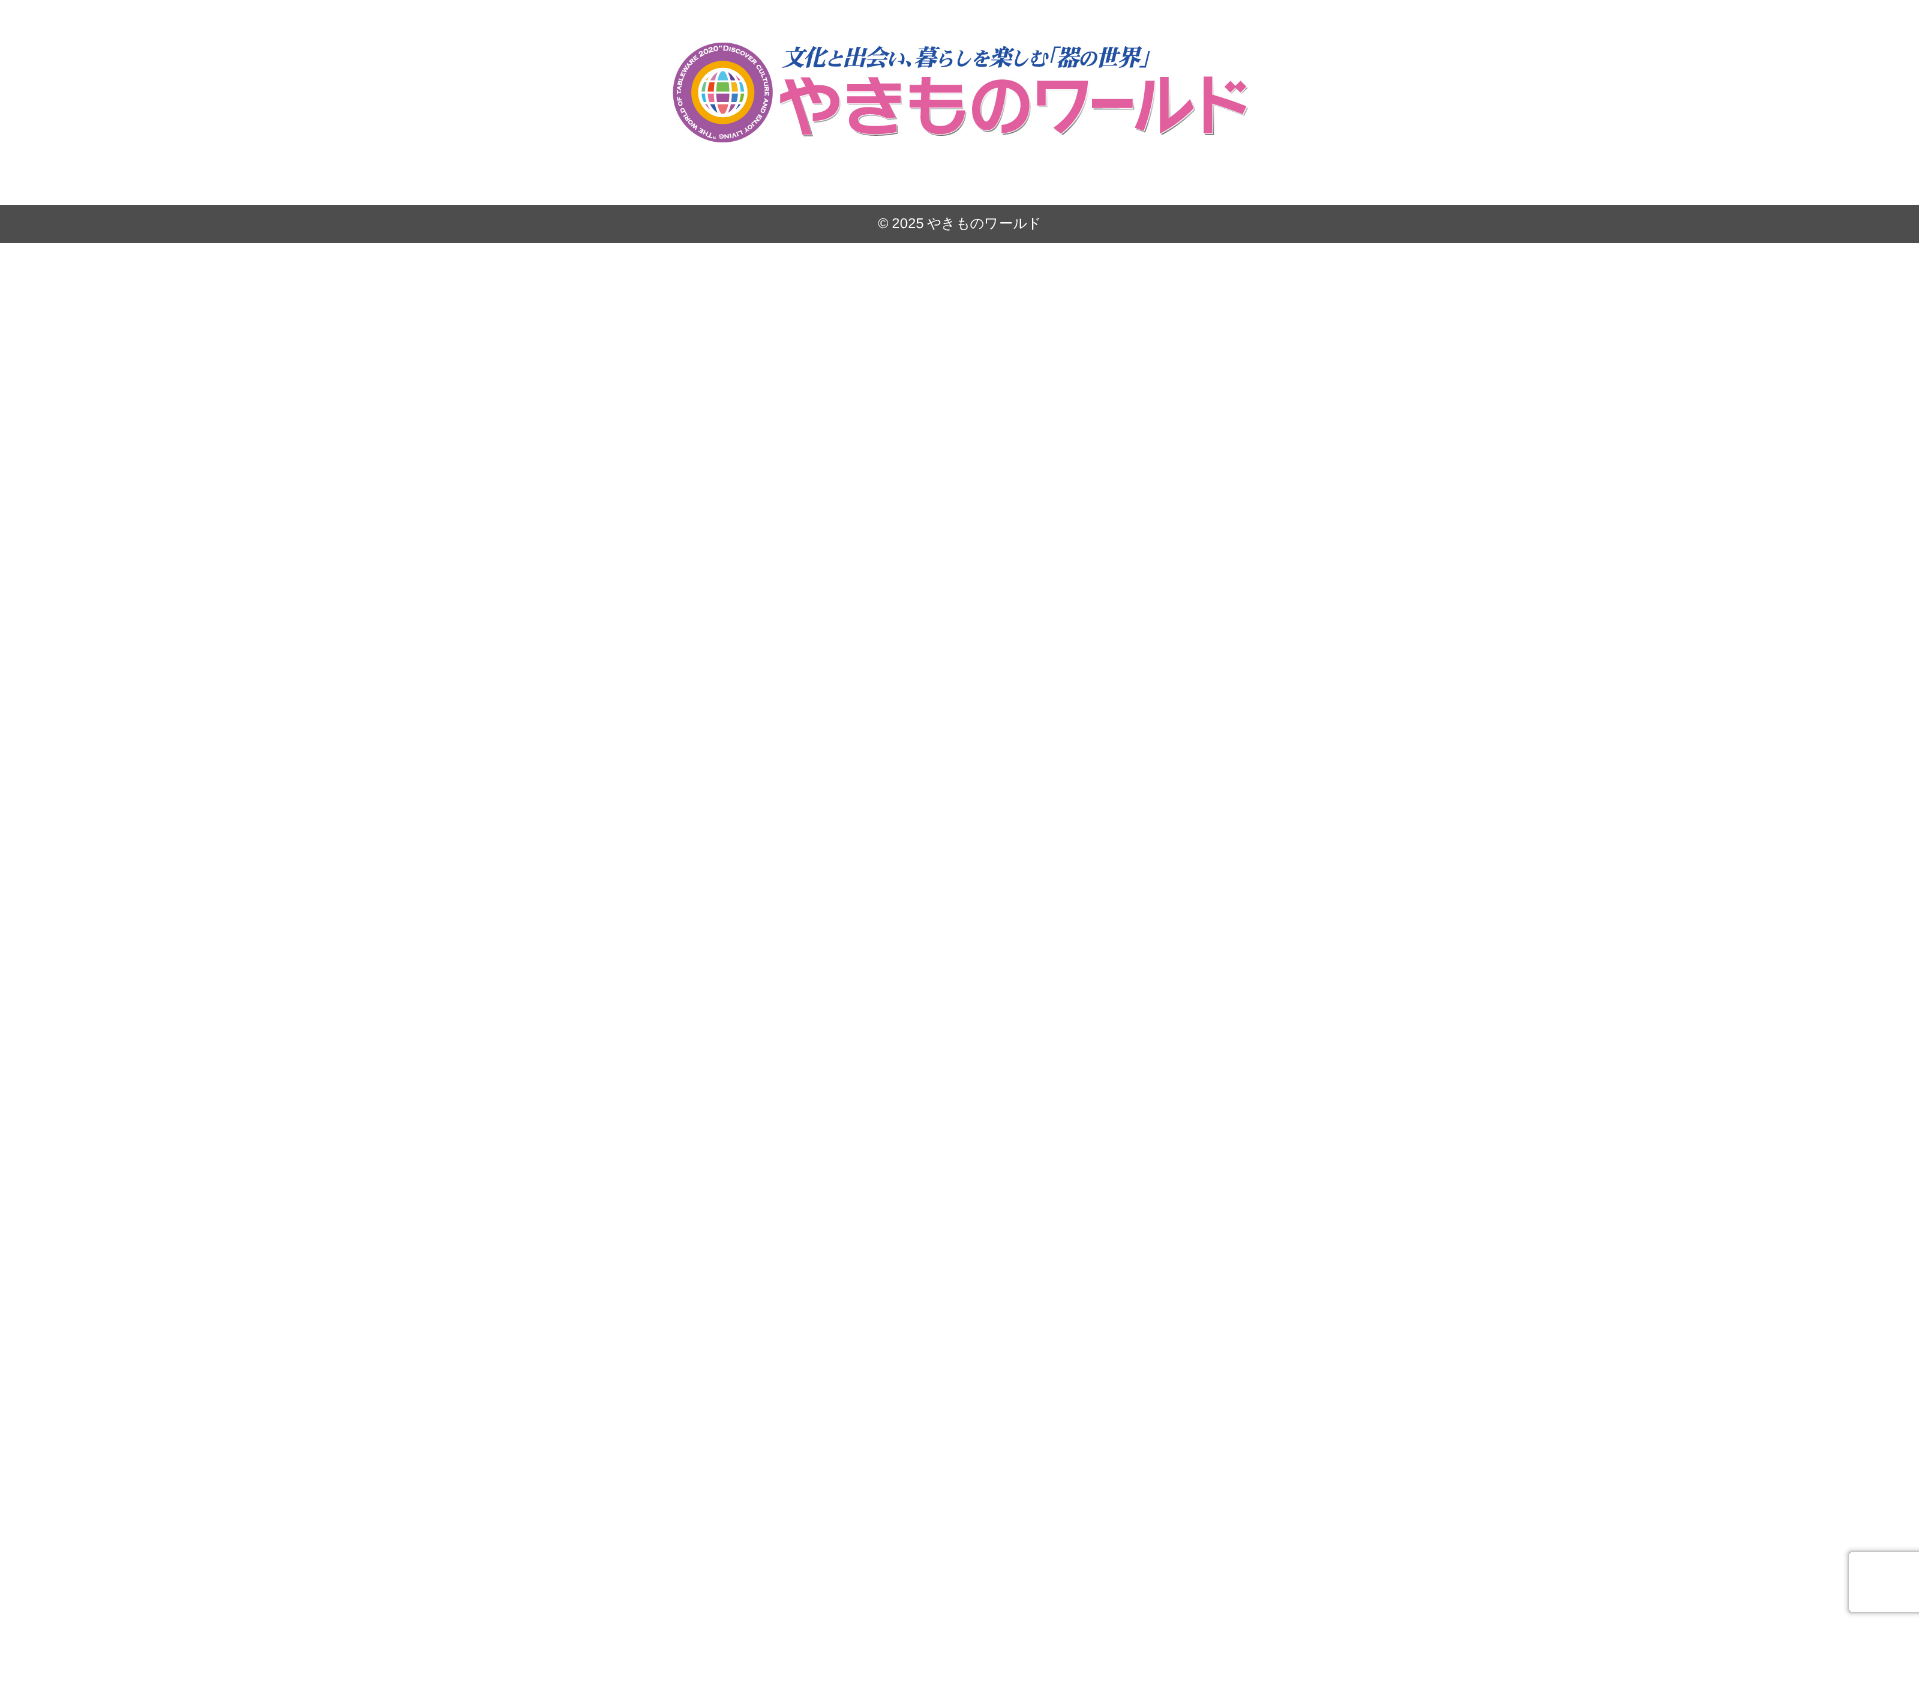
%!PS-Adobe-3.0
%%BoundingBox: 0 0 1919 1692
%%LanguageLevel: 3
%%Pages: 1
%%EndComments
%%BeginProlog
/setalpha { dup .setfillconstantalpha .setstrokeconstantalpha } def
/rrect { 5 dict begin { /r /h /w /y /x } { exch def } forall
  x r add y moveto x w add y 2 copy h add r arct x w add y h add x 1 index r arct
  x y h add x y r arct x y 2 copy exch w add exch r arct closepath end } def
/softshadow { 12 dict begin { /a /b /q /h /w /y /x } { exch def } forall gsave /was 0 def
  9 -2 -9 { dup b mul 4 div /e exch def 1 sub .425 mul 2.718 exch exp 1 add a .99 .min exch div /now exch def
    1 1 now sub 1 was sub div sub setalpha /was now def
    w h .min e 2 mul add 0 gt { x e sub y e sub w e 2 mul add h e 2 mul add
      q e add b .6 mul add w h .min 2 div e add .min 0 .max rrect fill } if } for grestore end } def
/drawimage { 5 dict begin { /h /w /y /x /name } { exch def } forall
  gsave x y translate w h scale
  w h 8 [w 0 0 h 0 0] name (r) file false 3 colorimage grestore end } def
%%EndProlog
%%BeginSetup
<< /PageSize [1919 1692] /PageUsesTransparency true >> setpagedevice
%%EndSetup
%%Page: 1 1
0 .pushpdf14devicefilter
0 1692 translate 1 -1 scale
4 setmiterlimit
1 setgray
0 0 1919 1692 rectfill
(images/1.raw) 672 42 576 101 drawimage
0.302 setgray
0 205 1919 38 rectfill
gsave
newpath 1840 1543 moveto 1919 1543 lineto 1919 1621 lineto 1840 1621 lineto closepath 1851 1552 moveto 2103 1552 lineto 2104 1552 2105 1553 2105 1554 curveto 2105 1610 lineto 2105 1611 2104 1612 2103 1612 curveto 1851 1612 lineto 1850 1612 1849 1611 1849 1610 curveto 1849 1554 lineto 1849 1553 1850 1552 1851 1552 curveto closepath eoclip newpath
0.502 setgray
1849 1552 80 60 2 2.5 1 softshadow
grestore
/LiberationSans-Regular [14 0 0 -14 0 0] selectfont
1 setgray
878 228 moveto (© 2025) show
/WenQuanYiZenHei-Medium [14 0 0 -14 0 0] selectfont
927 228 moveto (やきものワールド) show
.poppdf14devicefilter showpage
%%EOF
